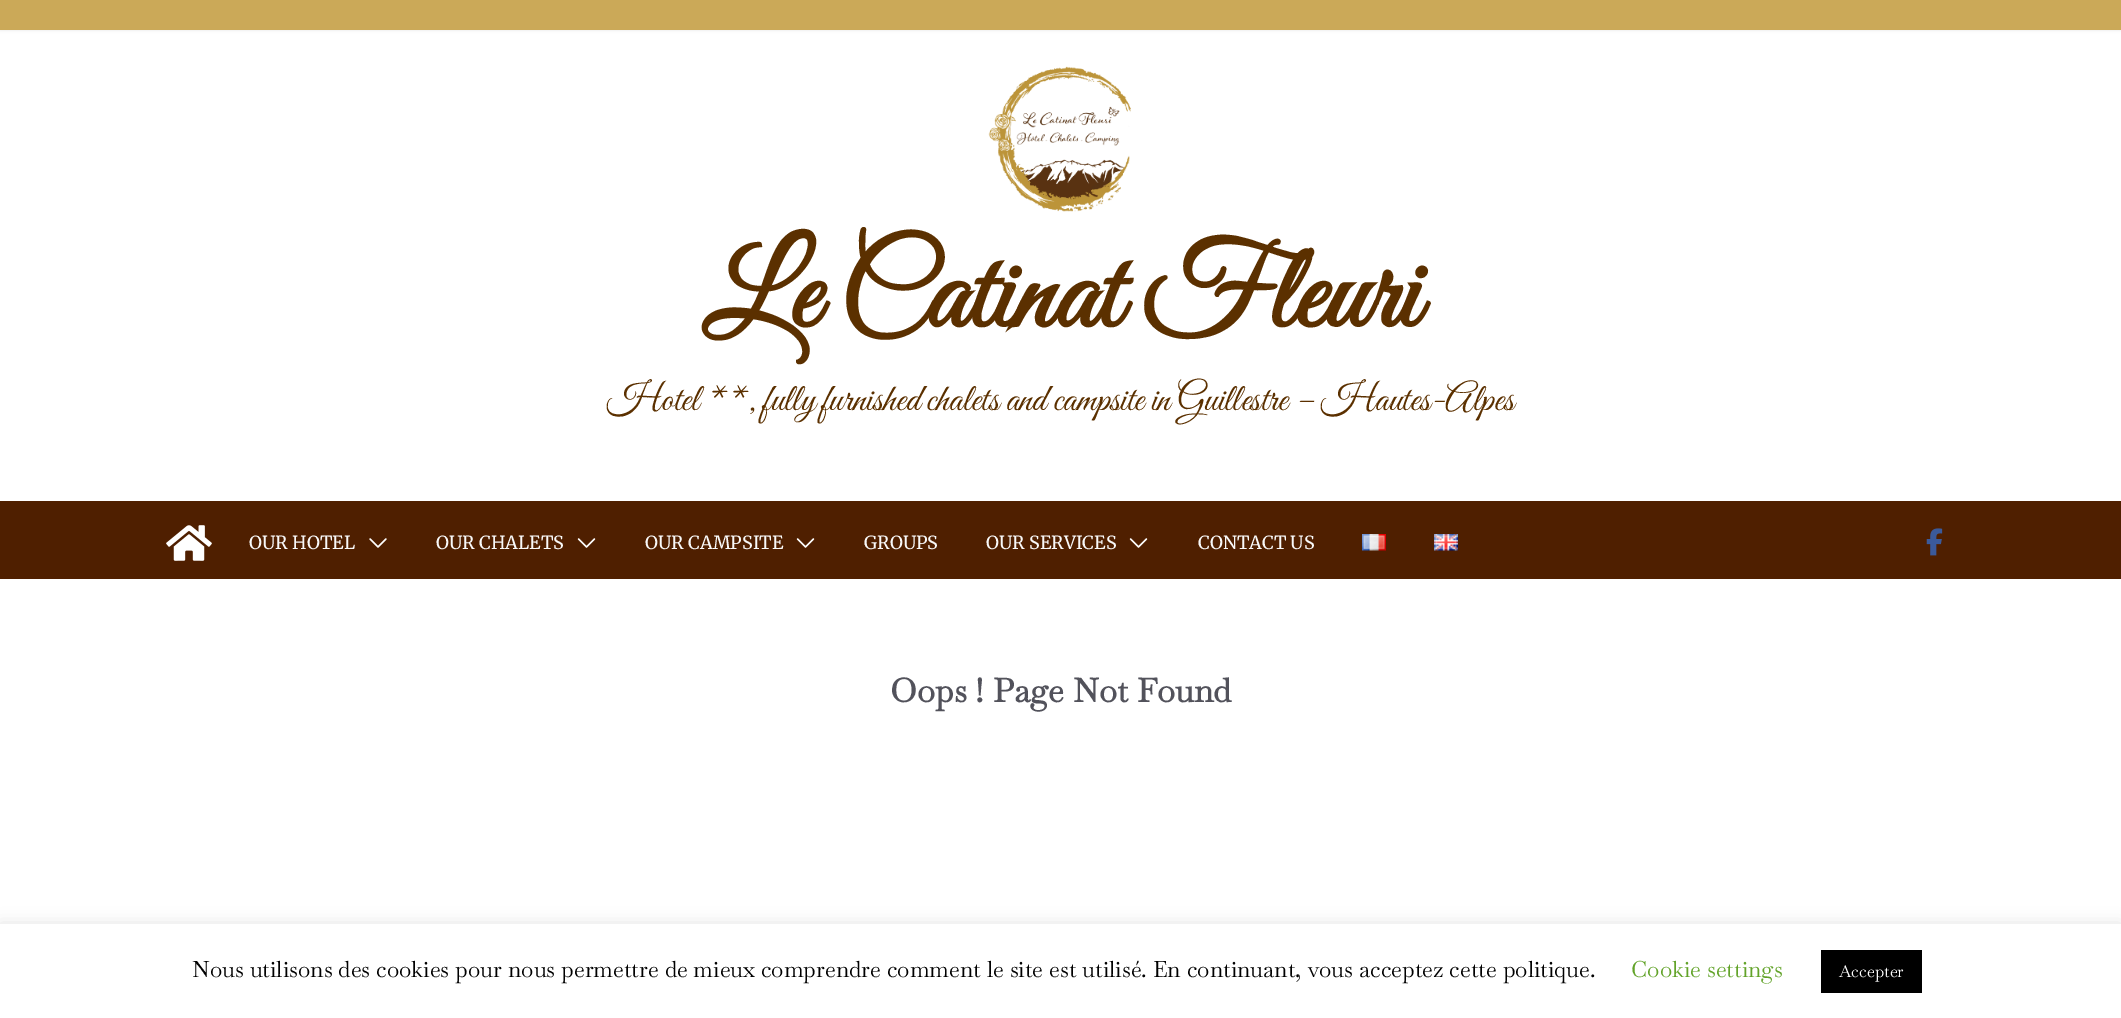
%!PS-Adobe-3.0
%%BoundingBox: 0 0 2121 1018
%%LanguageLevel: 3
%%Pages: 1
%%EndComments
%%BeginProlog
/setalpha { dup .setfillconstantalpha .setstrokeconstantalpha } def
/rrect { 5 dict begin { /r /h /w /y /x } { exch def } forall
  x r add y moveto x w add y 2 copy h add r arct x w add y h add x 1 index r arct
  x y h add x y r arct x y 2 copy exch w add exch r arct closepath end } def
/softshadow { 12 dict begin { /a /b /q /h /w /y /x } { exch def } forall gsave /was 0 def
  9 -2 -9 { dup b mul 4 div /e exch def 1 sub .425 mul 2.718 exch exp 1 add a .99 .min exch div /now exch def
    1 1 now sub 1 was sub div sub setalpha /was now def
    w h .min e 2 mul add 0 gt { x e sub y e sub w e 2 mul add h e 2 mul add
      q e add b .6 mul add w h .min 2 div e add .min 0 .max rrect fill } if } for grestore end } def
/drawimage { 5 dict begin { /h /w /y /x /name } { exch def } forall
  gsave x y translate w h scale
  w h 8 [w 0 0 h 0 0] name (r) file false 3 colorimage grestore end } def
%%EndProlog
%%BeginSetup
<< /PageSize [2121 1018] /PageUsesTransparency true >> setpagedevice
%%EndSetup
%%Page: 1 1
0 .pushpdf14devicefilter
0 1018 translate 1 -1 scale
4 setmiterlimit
1 setgray
0 0 2121 1018 rectfill
0 setgray
0 0 2121 30 0 1.5 0.1 softshadow
0.796 0.663 0.345 setrgbcolor
0 0 2121 30 rectfill
(images/1.raw) 988 66 143 146 drawimage
0.31 0.122 0 setrgbcolor
0 501 2121 78 rectfill
(images/2.raw) 166 525 46 36 drawimage
(images/3.raw) 369 538 18 10 drawimage
(images/4.raw) 577 538 19 10 drawimage
(images/4.raw) 796 538 19 10 drawimage
(images/4.raw) 1129 538 19 10 drawimage
(images/5.raw) 1362 534 24 17 drawimage
(images/6.raw) 1434 534 24 17 drawimage
(images/7.raw) 1926 528 17 28 drawimage
0.675 0.671 0.671 setrgbcolor
0 923 2121 94 0 7.5 0.3 softshadow
1 setgray
0 924 2121 94 rectfill
0 setgray
1821 950 101 43 rectfill
/GreatVibes-Bold [120 0 0 -120 0 0] selectfont
0.357 0.188 0 setrgbcolor
702 327 moveto (Le Catinat Fleuri) show
/GreatVibes-Regular [38.4 0 0 -38.4 0 0] selectfont
607 410 moveto (Hotel **, fully furnished chalets and campsite in Guillestre – Hautes-Alpes) show
/Merriweather-Light [18 0 0 -18 0 0] selectfont
0.976 setgray
249 549 moveto (OUR HOTEL) show
436 549 moveto (OUR CHALETS) show
645 549 moveto (OUR CAMPSITE) show
864 549 moveto (GROUPS) show
986 549 moveto (OUR SERVICES) show
1198 549 moveto (CONTACT US) show
/Baskervville-Bold [33 0 0 -33 0 0] selectfont
0.322 0.322 0.357 setrgbcolor
890 702 moveto (Oops ! Page Not Found) show
/Baskervville-Regular [22.5 0 0 -22.5 0 0] selectfont
0 setgray
192 977 moveto (Nous utilisons des cookies pour nous permettre de mieux comprendre comment le site est utilisé. En continuant, vous acceptez cette politique.) show
0.384 0.639 0.161 setrgbcolor
1631 977 moveto (Cookie settings) show
/Baskervville-Regular [16.5 0 0 -16.5 0 0] selectfont
1 setgray
1839 977 moveto (Accepter) show
.poppdf14devicefilter showpage
%%EOF
